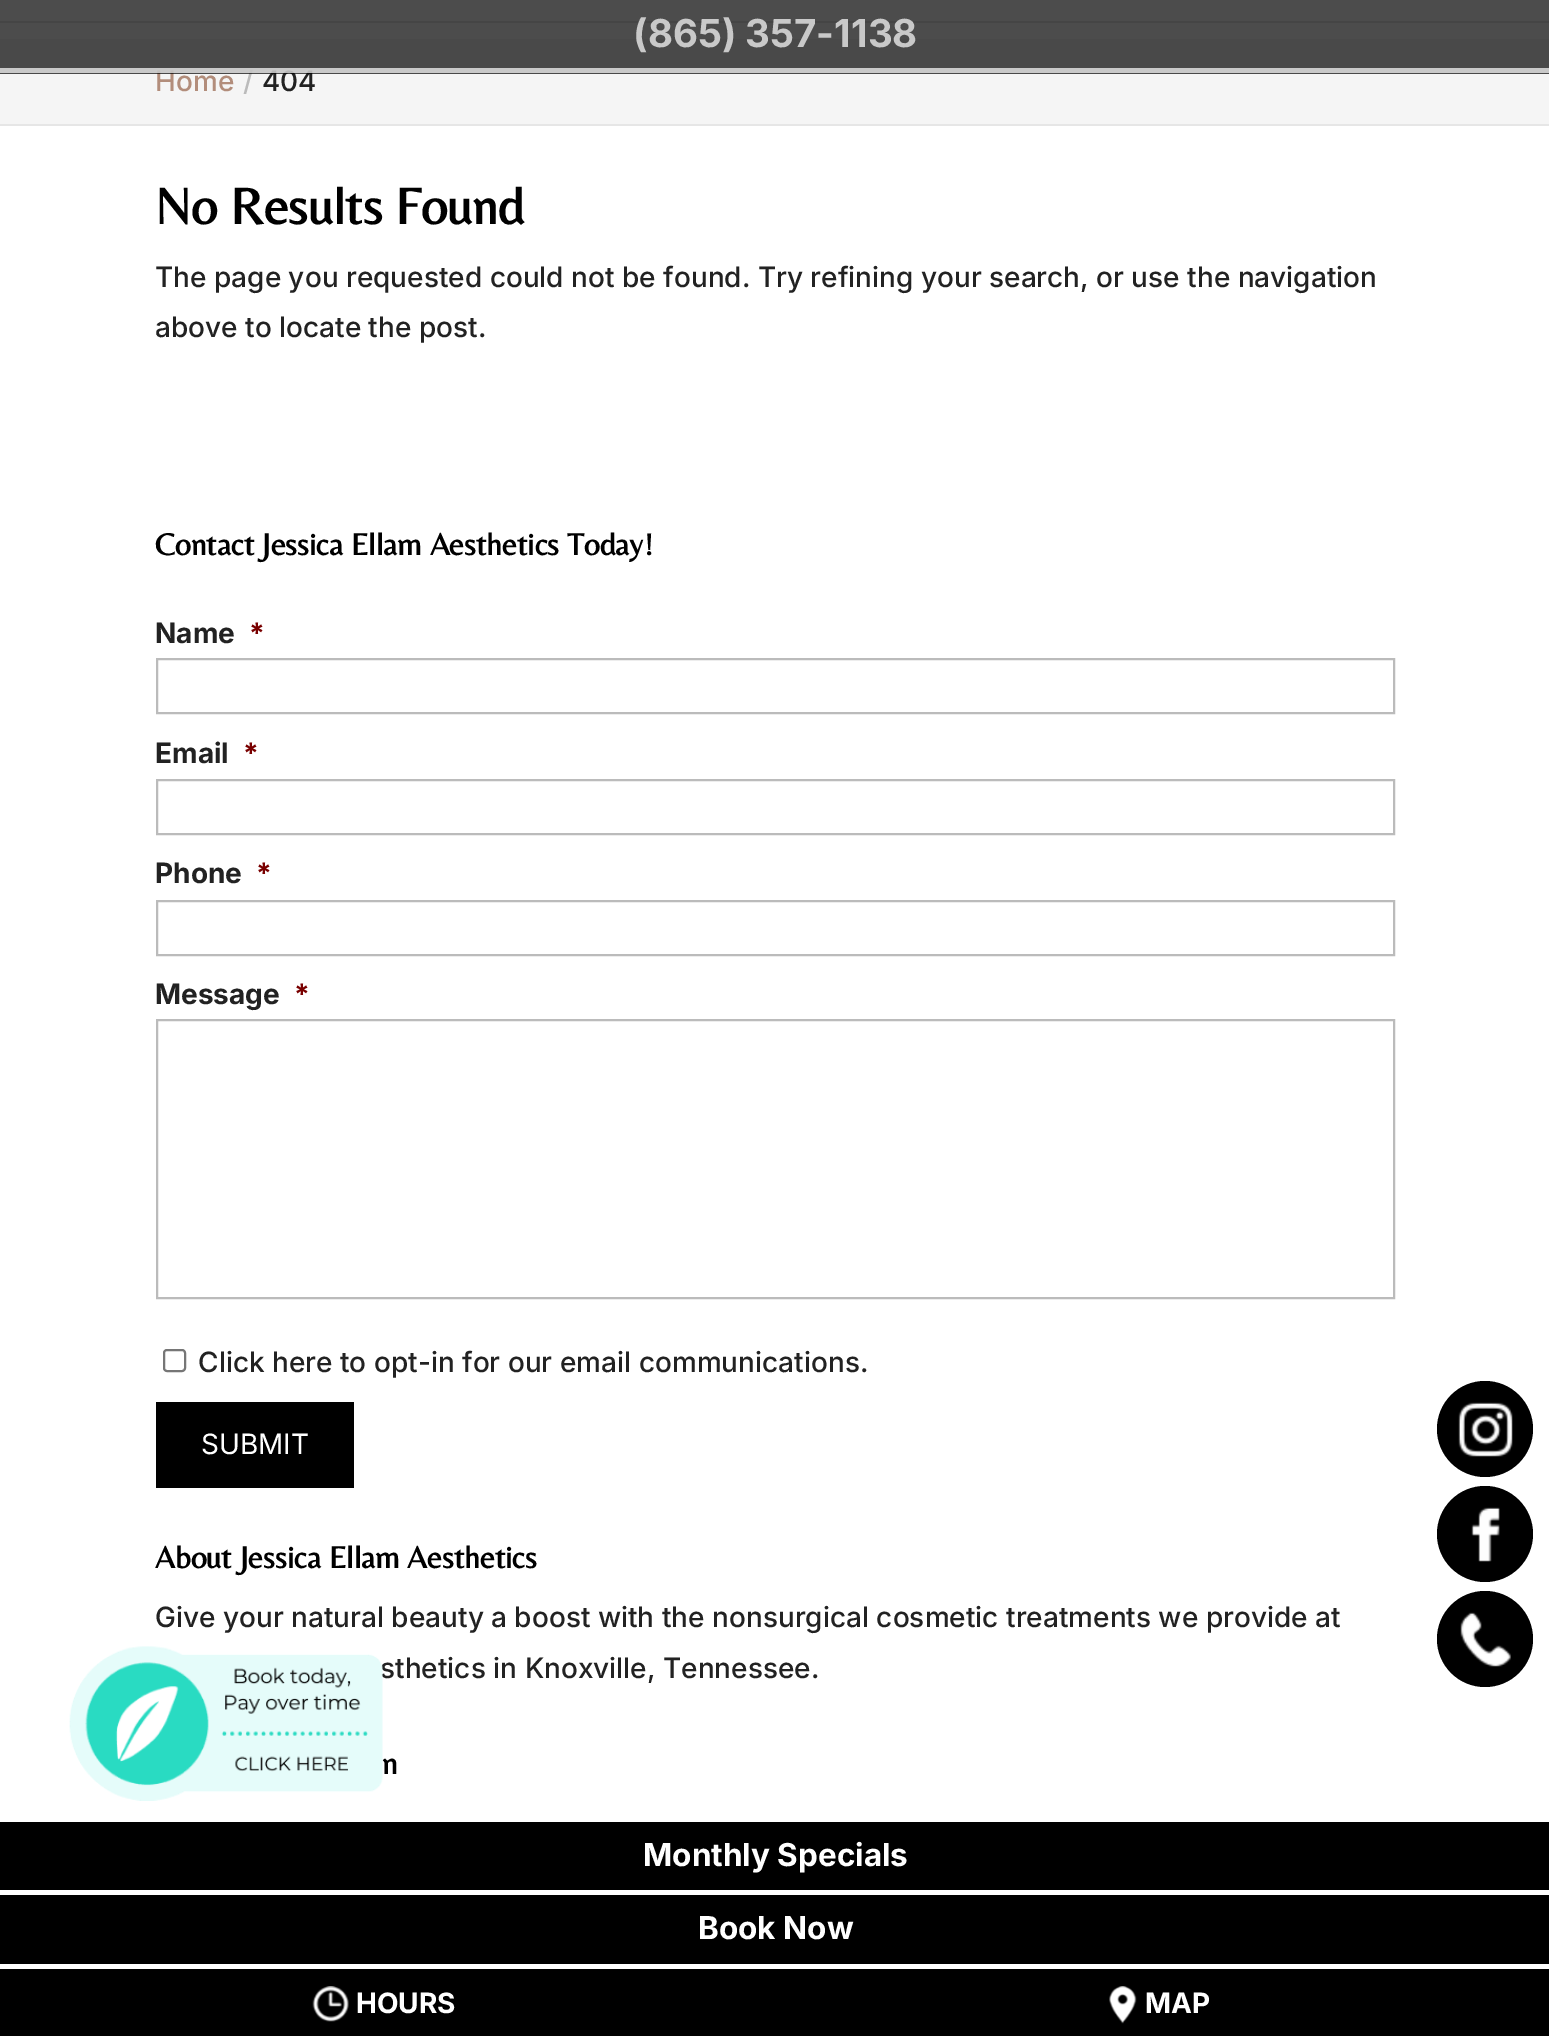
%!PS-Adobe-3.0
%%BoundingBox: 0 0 1549 2036
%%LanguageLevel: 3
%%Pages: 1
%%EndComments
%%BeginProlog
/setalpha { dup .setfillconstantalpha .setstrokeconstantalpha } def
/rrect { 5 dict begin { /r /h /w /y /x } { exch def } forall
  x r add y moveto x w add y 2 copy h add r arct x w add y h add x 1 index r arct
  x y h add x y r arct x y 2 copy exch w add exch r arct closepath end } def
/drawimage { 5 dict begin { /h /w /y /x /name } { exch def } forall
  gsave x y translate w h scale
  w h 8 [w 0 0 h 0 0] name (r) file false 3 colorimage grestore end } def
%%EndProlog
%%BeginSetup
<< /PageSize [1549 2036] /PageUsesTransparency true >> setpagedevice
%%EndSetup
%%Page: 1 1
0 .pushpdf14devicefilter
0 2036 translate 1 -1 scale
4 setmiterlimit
1 setgray
0 0 1549 2036 rectfill
0.902 setgray
newpath 0 124 moveto 0 126 lineto 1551 126 lineto 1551 40 lineto 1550 40 lineto 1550 124 lineto closepath fill
0.961 setgray
0 39 1549 85 rectfill
0 setgray
newpath 1485 1429 48 0 360 arc closepath fill
(images/1.raw) 1458 1402 55 55 drawimage
newpath 1485 1534 48 0 360 arc closepath fill
(images/2.raw) 1471 1507 29 55 drawimage
newpath 1485 1639 48 0 360 arc closepath fill
(images/3.raw) 1460 1612 51 55 drawimage
0 1822 1549 68 rectfill
0 1895 1549 69 rectfill
0 1969 1549 67 rectfill
(images/4.raw) 312 1986 37 36 drawimage
(images/5.raw) 1109 1986 28 38 drawimage
0.733 setgray
2 setlinewidth
157 659 1237 54 rectstroke
157 780 1237 54 rectstroke
157 901 1237 54 rectstroke
157 1020 1237 278 rectstroke
0.463 setgray
164 1350 21 21 3 rrect stroke
0 setgray
156 1402 198 86 rectfill
0.902 setgray
newpath 0 21 moveto 0 23 lineto 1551 23 lineto 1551 -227 lineto 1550 -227 lineto 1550 21 lineto closepath fill
/Inter-Medium [28 0 0 -28 0 0] selectfont
0.698 0.553 0.482 setrgbcolor
155 91 moveto (Home) show
0.733 setgray
243 91 moveto (/) show
0.133 setgray
262 91 moveto (404) show
0.7 setalpha
0 setgray
0 0 1549 74 rectfill
1 setgray
0 68 1549 5 rectfill
/Inter-Bold [38.5 0 0 -38.5 0 0] selectfont
1 setalpha
0.788 setgray
633 47 moveto (\(865\) 357-1138) show
/Inter-Bold [31.5 0 0 -31.5 0 0] selectfont
1 setgray
643 1866 moveto (Monthly Specials) show
698 1939 moveto (Book Now) show
/Inter-Bold [28 0 0 -28 0 0] selectfont
356 2013 moveto (HOURS) show
1145 2013 moveto (MAP) show
/Belleza-Bold [52.5 0 0 -52.5 0 0] selectfont
0 setgray
155 224 moveto (No Results Found) show
/Inter-Medium [28 0 0 -28 0 0] selectfont
0.133 setgray
155 287 moveto (The page you requested could not be found. Try refining your search, or use the navigation) show
155 337 moveto (above to locate the post.) show
/Belleza-Bold [31.5 0 0 -31.5 0 0] selectfont
0 setgray
155 555 moveto (Contact Jessica Ellam Aesthetics Today!) show
/Inter-Bold [28 0 0 -28 0 0] selectfont
0.133 setgray
155 643 moveto (Name) show
0.475 0 0 setrgbcolor
249 643 moveto (*) show
0.133 setgray
155 763 moveto (Email) show
0.475 0 0 setrgbcolor
243 763 moveto (*) show
0.133 setgray
155 883 moveto (Phone) show
0.475 0 0 setrgbcolor
256 883 moveto (*) show
0.133 setgray
155 1004 moveto (Message) show
0.475 0 0 setrgbcolor
294 1004 moveto (*) show
/Inter-Medium [28 0 0 -28 0 0] selectfont
0.133 setgray
198 1372 moveto (Click here to opt-in for our email communications.) show
/Inter-Regular [28 0 0 -28 0 0] selectfont
1 setgray
201 1454 moveto (SUBMIT) show
/Belleza-Bold [31.5 0 0 -31.5 0 0] selectfont
0 setgray
155 1568 moveto (About Jessica Ellam Aesthetics) show
/Inter-Medium [28 0 0 -28 0 0] selectfont
0.133 setgray
155 1627 moveto (Give your natural beauty a boost with the nonsurgical cosmetic treatments we provide at) show
380 1678 moveto (sthetics in Knoxville, Tennessee.) show
/Belleza-Bold [31.5 0 0 -31.5 0 0] selectfont
0 setgray
382 1774 moveto (n) show
(images/6.raw) 69 1646 314 155 drawimage
.poppdf14devicefilter showpage
%%EOF
